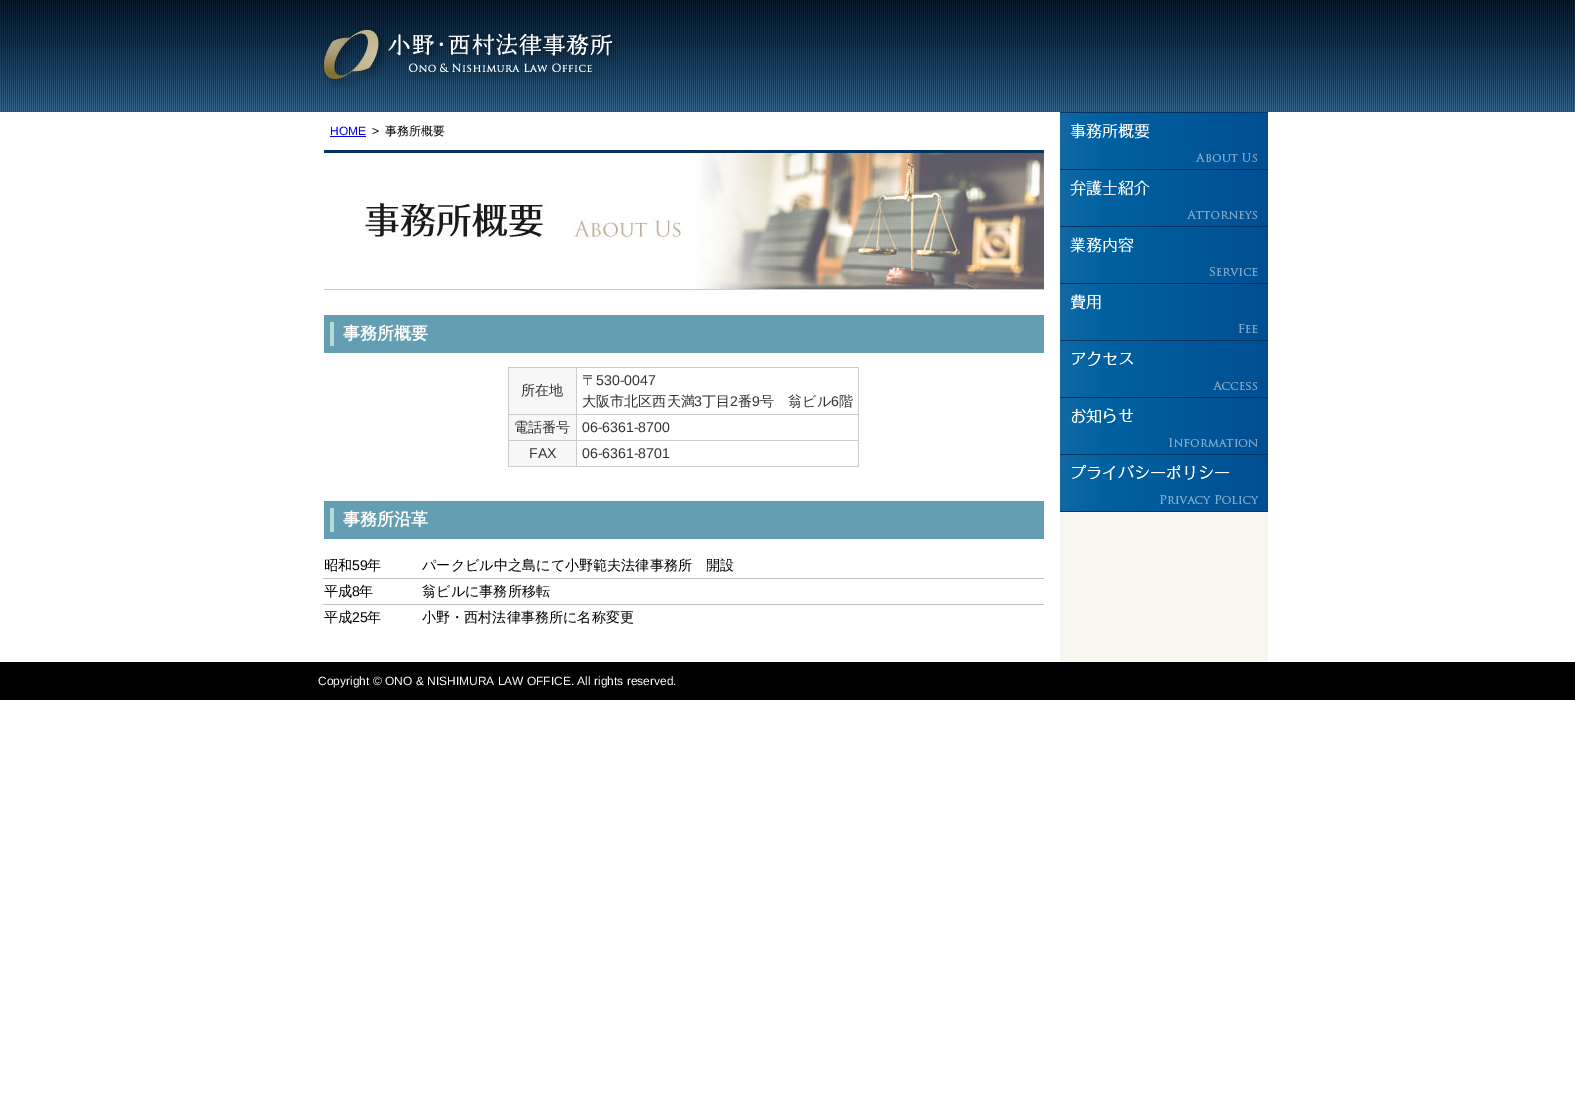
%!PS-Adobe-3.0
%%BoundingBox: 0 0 1575 1093
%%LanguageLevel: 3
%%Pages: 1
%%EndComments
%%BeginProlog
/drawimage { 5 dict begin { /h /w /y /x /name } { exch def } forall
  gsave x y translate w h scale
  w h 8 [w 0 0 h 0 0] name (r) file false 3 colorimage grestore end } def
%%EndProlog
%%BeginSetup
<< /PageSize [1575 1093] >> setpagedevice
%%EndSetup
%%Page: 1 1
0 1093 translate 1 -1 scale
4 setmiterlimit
1 setgray
0 0 1575 1093 rectfill
(images/1.raw) 0 0 1575 112 drawimage
(images/2.raw) 323 29 294 59 drawimage
0.969 0.965 0.945 setrgbcolor
1060 512 208 150 rectfill
0 0 0.933 setrgbcolor
330 136 36 1 rectfill
(images/3.raw) 324 150 720 140 drawimage
0.392 0.62 0.698 setrgbcolor
324 315 720 38 rectfill
0.718 0.863 0.831 setrgbcolor
330 322 4 24 rectfill
0.969 setgray
509 368 67 46 rectfill
0.8 setgray
576 367 283 1 rectfill
576 414 283 1 rectfill
576 440 283 1 rectfill
858 440 1 27 rectfill
576 466 283 1 rectfill
576 440 1 27 rectfill
508 440 69 1 rectfill
576 414 1 27 rectfill
508 414 69 1 rectfill
576 367 1 48 rectfill
508 367 69 1 rectfill
508 466 69 1 rectfill
508 440 1 27 rectfill
508 414 1 27 rectfill
508 367 1 48 rectfill
858 414 1 27 rectfill
858 367 1 48 rectfill
0.969 setgray
509 415 67 25 rectfill
509 441 67 25 rectfill
0.392 0.62 0.698 setrgbcolor
324 501 720 38 rectfill
0.718 0.863 0.831 setrgbcolor
330 508 4 24 rectfill
0.753 setgray
323 578 721 1 rectfill
323 604 721 1 rectfill
(images/4.raw) 1060 112 208 57 drawimage
(images/5.raw) 1060 169 208 57 drawimage
(images/6.raw) 1060 226 208 57 drawimage
(images/7.raw) 1060 283 208 57 drawimage
(images/8.raw) 1060 340 208 57 drawimage
(images/9.raw) 1060 397 208 57 drawimage
(images/10.raw) 1060 454 208 58 drawimage
0 setgray
0 662 1575 38 rectfill
/LiberationSans-Regular [12 0 0 -12 0 0] selectfont
0 0 0.933 setrgbcolor
330 135 moveto (HOME) show
0 setgray
372 135 moveto (>) show
/WenQuanYiZenHei-Medium [12 0 0 -12 0 0] selectfont
385 135 moveto (事務所概要) show
/WenQuanYiZenHei-Bold [17 0 0 -17 0 0] selectfont
1 setgray
343 339 moveto (事務所概要) show
/WenQuanYiZenHei-Medium [14.1 0 0 -14.1 0 0] selectfont
0.2 setgray
521 395 moveto (所在地) show
582 385 moveto (〒) show
/LiberationSans-Regular [14.1 0 0 -14.1 0 0] selectfont
596 385 moveto (530-0047) show
/WenQuanYiZenHei-Medium [14.1 0 0 -14.1 0 0] selectfont
582 406 moveto (大阪市北区西天満) show
/LiberationSans-Regular [14.1 0 0 -14.1 0 0] selectfont
694 406 moveto (3) show
/WenQuanYiZenHei-Medium [14.1 0 0 -14.1 0 0] selectfont
702 406 moveto (丁目) show
/LiberationSans-Regular [14.1 0 0 -14.1 0 0] selectfont
730 406 moveto (2) show
/WenQuanYiZenHei-Medium [14.1 0 0 -14.1 0 0] selectfont
738 406 moveto (番) show
/LiberationSans-Regular [14.1 0 0 -14.1 0 0] selectfont
752 406 moveto (9) show
/WenQuanYiZenHei-Medium [14.1 0 0 -14.1 0 0] selectfont
760 406 moveto (号　翁ビル) show
/LiberationSans-Regular [14.1 0 0 -14.1 0 0] selectfont
831 406 moveto (6) show
/WenQuanYiZenHei-Medium [14.1 0 0 -14.1 0 0] selectfont
839 406 moveto (階) show
514 432 moveto (電話番号) show
/LiberationSans-Regular [14.1 0 0 -14.1 0 0] selectfont
582 432 moveto (06-6361-8700) show
529 458 moveto (FAX) show
582 458 moveto (06-6361-8701) show
/WenQuanYiZenHei-Bold [17 0 0 -17 0 0] selectfont
1 setgray
343 525 moveto (事務所沿革) show
/WenQuanYiZenHei-Medium [14.1 0 0 -14.1 0 0] selectfont
0 setgray
324 570 moveto (昭和) show
/LiberationSans-Regular [14.1 0 0 -14.1 0 0] selectfont
352 570 moveto (59) show
/WenQuanYiZenHei-Medium [14.1 0 0 -14.1 0 0] selectfont
367 570 moveto (年) show
422 570 moveto (パークビル中之島にて小野範夫法律事務所　開設) show
324 596 moveto (平成) show
/LiberationSans-Regular [14.1 0 0 -14.1 0 0] selectfont
352 596 moveto (8) show
/WenQuanYiZenHei-Medium [14.1 0 0 -14.1 0 0] selectfont
359 596 moveto (年) show
422 596 moveto (翁ビルに事務所移転) show
324 622 moveto (平成) show
/LiberationSans-Regular [14.1 0 0 -14.1 0 0] selectfont
352 622 moveto (25) show
/WenQuanYiZenHei-Medium [14.1 0 0 -14.1 0 0] selectfont
367 622 moveto (年) show
422 622 moveto (小野・西村法律事務所に名称変更) show
/LiberationSans-Regular [12 0 0 -12 0 0] selectfont
1 setgray
318 685 moveto (Copyright © ONO & NISHIMURA LAW OFFICE. All rights reserved.) show
showpage
%%EOF
